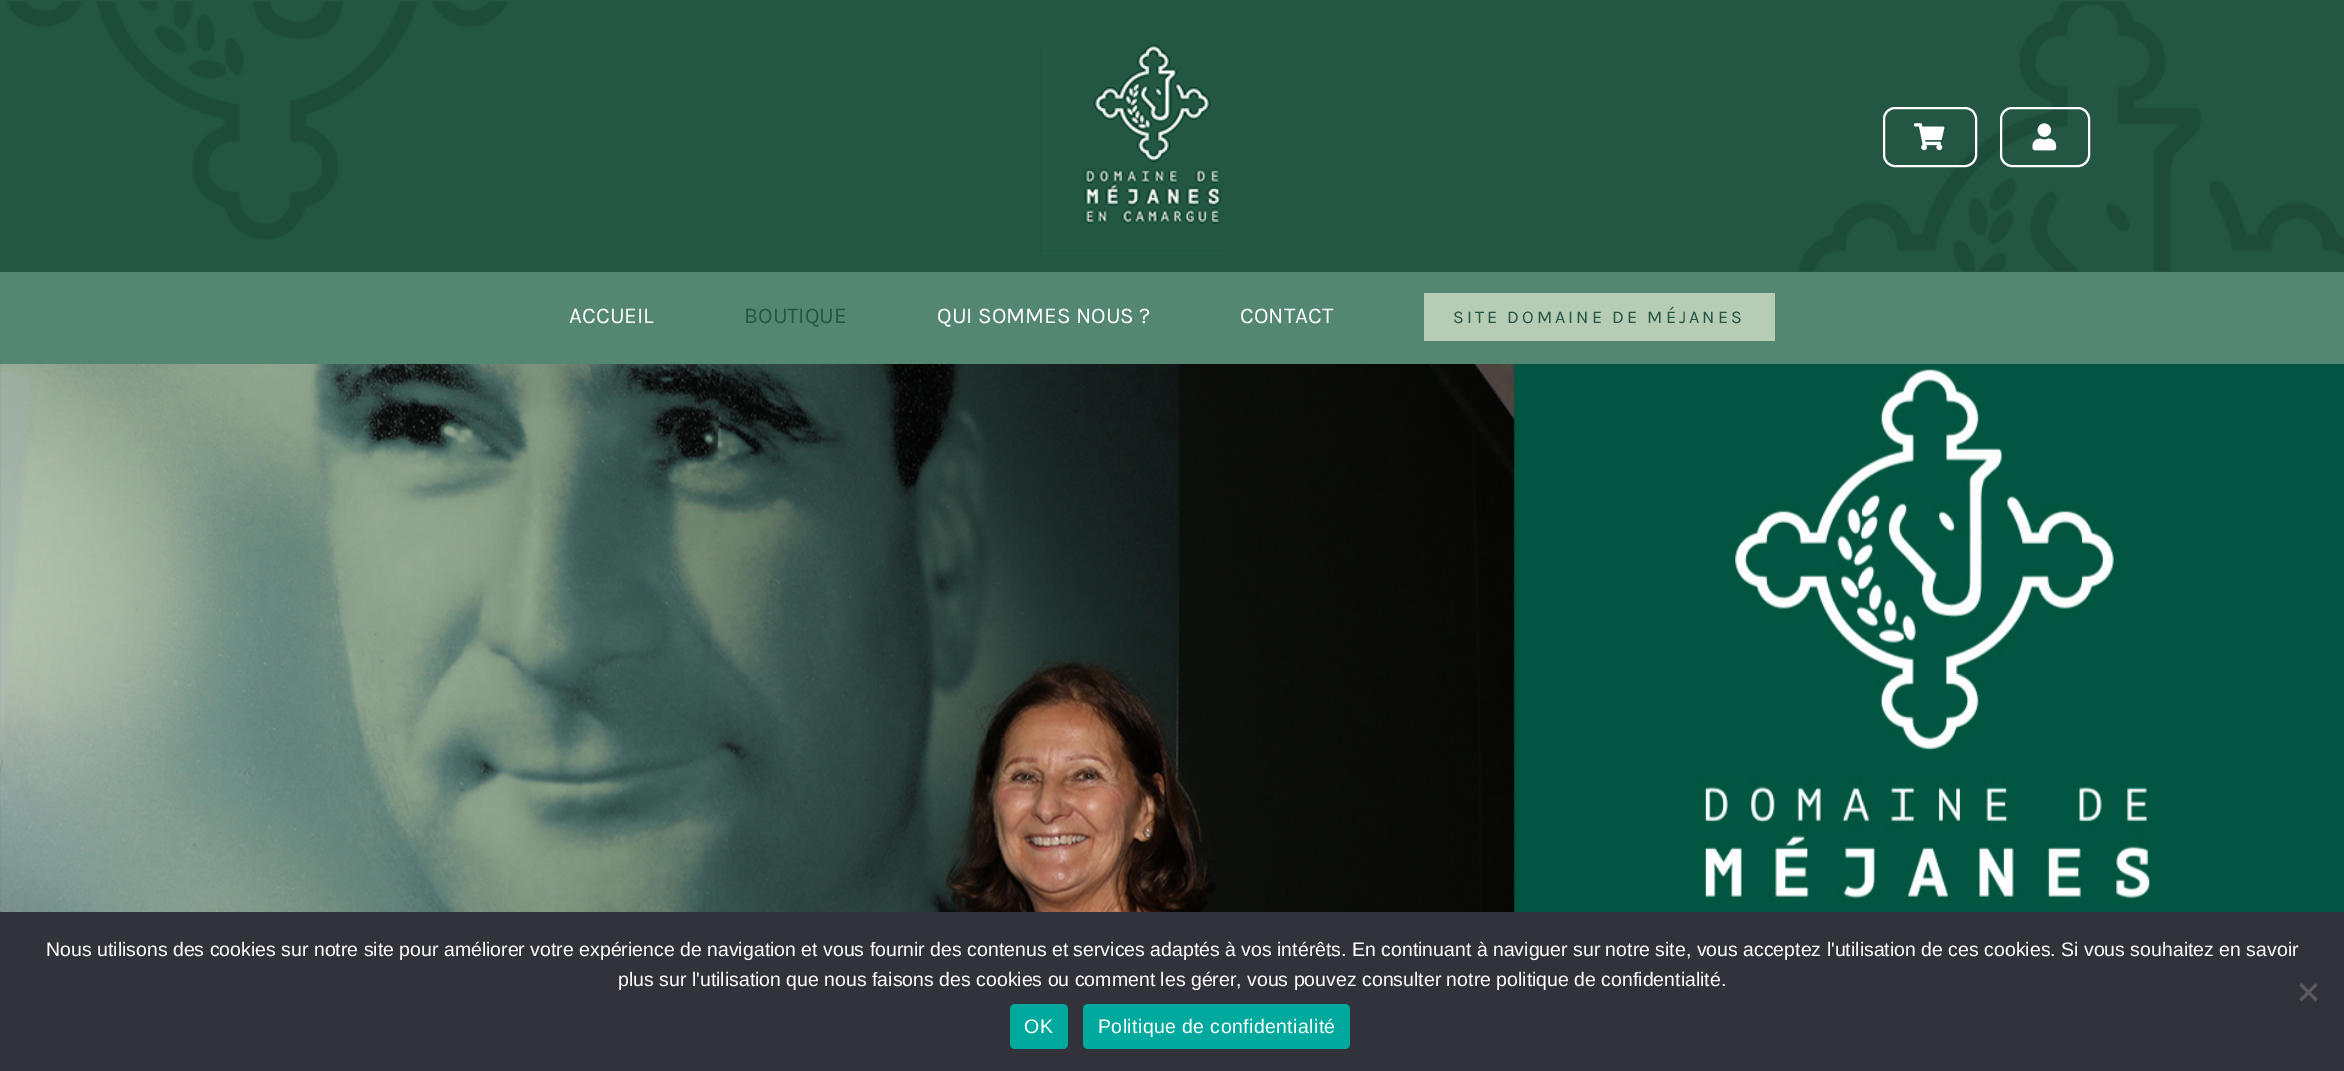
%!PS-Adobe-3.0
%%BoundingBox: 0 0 2344 1071
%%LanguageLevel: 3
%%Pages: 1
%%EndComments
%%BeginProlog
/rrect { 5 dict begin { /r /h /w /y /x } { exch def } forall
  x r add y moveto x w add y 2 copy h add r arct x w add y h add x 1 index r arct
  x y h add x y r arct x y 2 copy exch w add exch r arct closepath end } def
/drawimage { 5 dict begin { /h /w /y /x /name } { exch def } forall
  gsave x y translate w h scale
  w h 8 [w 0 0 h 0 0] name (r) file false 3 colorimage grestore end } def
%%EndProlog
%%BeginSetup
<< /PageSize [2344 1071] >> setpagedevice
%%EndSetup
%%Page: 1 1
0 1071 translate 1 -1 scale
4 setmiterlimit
0.137 0.337 0.263 setrgbcolor
0 0 2344 1071 rectfill
(images/1.raw) 7 1 2337 271 drawimage
(images/2.raw) 1041 44 181 212 drawimage
1 setgray
2 setlinewidth
1884 108 92 58 11 rrect stroke
(images/3.raw) 1914 123 31 28 drawimage
2001 108 88 58 11 rrect stroke
(images/4.raw) 2032 123 25 28 drawimage
0.325 0.529 0.447 setrgbcolor
0 272 2344 92 rectfill
0.714 0.8 0.71 setrgbcolor
1424 293 351 48 rectfill
(images/5.raw) 0 364 2344 548 drawimage
0.196 0.196 0.227 setrgbcolor
0 912 2344 159 rectfill
0.349 0.349 0.365 setrgbcolor
newpath 2315.5 983 moveto 2317.5 985.5 lineto 2301.5 1001.5 lineto 2299.5 999 lineto closepath fill
newpath 2299.5 985.5 moveto 2301.5 983 lineto 2317.5 999 lineto 2315.5 1001.5 lineto closepath fill
0 0.663 0.616 setrgbcolor
1010 1004 58 45 5 rrect fill
1083 1004 267 45 5 rrect fill
/Karla-Regular [22.5 0 0 -22.5 0 0] selectfont
1 setgray
569 323 moveto (ACCUEIL) show
0.137 0.341 0.267 setrgbcolor
744 323 moveto (BOUTIQUE) show
1 setgray
937 323 moveto (QUI SOMMES NOUS ?) show
1240 323 moveto (CONTACT) show
/Karla-Regular [18 0 0 -18 0 0] selectfont
0.137 0.341 0.267 setrgbcolor
1453 323 moveto 3 0 (SITE DOMAINE DE MÉJANES) ashow
/LiberationSans-Regular [19.5 0 0 -19.5 0 0] selectfont
1 setgray
46 956 moveto (Nous utilisons des cookies sur notre site pour améliorer votre expérience de navigation et vous fournir des contenus et services adaptés à vos intérêts. En continuant à naviguer sur notre site, vous acceptez l'utilisation de ces cookies. Si vous souhaitez en savoir) show
618 986 moveto (plus sur l'utilisation que nous faisons des cookies ou comment les gérer, vous pouvez consulter notre politique de confidentialité.) show
1024 1033 moveto 0.4 0 (OK) ashow
1098 1033 moveto 0.4 0 (Politique de confidentialité) ashow
showpage
%%EOF
